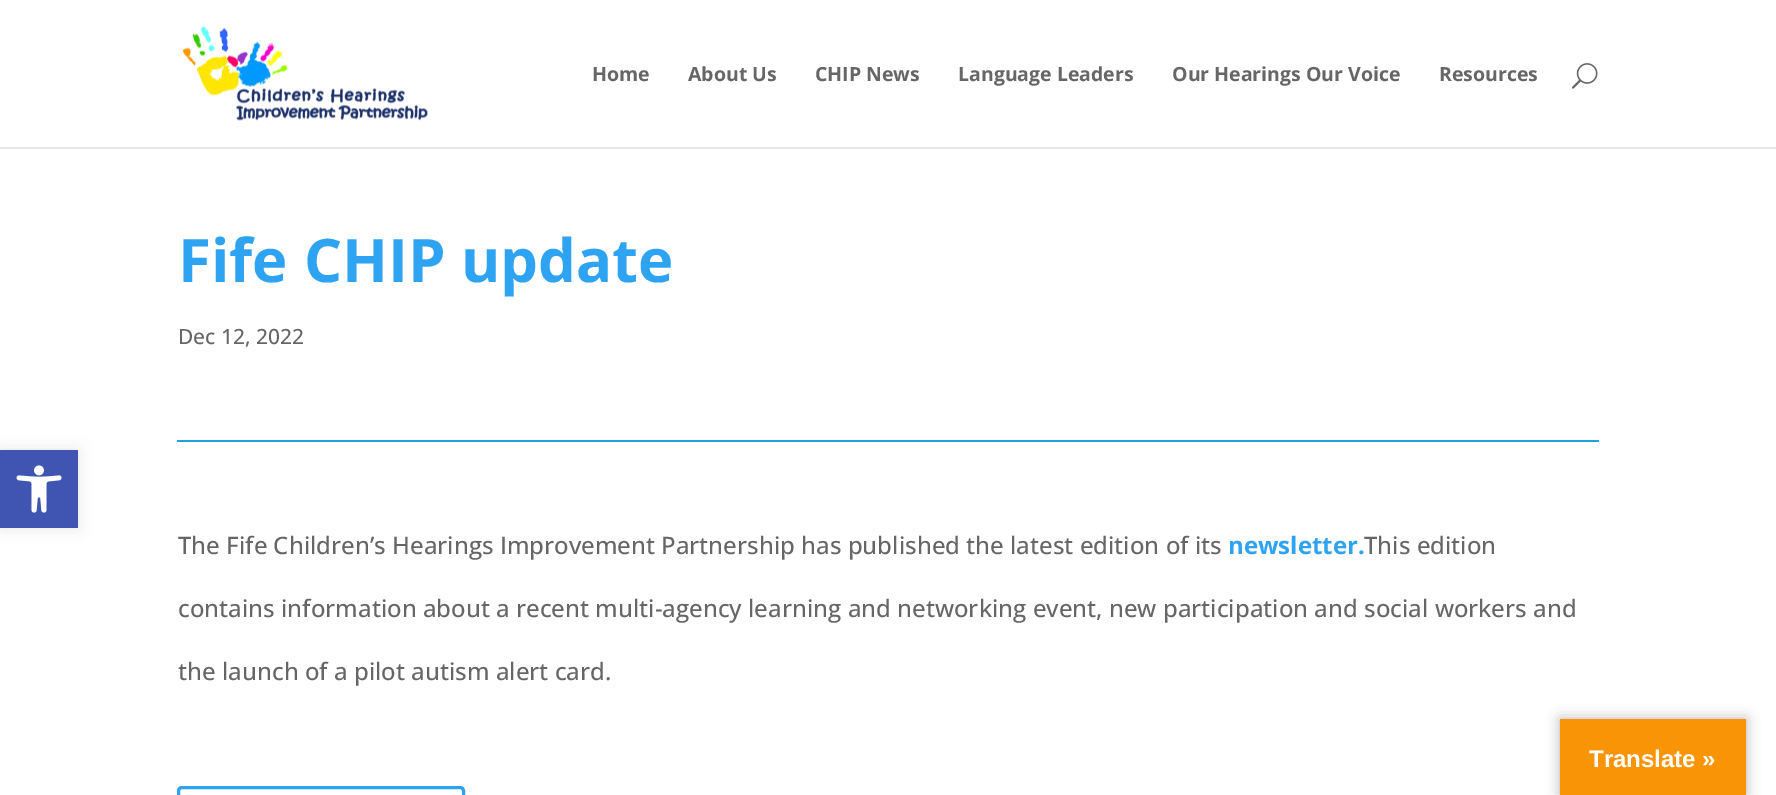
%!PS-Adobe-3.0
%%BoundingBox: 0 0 1776 795
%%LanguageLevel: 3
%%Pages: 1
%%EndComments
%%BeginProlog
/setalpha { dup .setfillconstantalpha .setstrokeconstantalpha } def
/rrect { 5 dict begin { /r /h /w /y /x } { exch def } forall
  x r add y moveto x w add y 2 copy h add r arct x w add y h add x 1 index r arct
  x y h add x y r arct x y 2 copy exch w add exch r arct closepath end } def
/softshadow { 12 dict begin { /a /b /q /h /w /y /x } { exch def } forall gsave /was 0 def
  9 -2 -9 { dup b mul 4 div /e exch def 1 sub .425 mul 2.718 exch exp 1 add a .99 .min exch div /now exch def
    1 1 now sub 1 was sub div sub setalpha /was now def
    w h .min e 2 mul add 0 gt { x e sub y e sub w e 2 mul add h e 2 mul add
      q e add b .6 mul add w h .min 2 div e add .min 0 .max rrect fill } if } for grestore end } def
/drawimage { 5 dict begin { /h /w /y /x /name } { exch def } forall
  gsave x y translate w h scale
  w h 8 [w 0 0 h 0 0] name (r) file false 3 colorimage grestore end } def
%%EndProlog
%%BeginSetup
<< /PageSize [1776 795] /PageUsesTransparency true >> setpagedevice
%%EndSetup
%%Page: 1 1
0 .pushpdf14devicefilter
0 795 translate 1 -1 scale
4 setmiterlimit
1 setgray
0 0 1776 795 rectfill
0 setgray
0 450 78 78 0 7.5 0.1 softshadow
0.251 0.329 0.698 setrgbcolor
0 450 78 78 rectfill
(images/1.raw) 16 465 46 48 drawimage
0.902 setgray
0 147 1776 2 rectfill
(images/2.raw) 183 26 245 95 drawimage
(images/3.raw) 1571 63 27 26 drawimage
0.133 0.635 0.859 setrgbcolor
177 440 1422 2 rectfill
0.18 0.639 0.949 setrgbcolor
3 setlinewidth
178.5 787.5 285 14 3.5 rrect stroke
0 setgray
1560 719 186 76 0 7 0.3 softshadow
0.973 0.58 0.024 setrgbcolor
1560 719 186 76 rectfill
/OpenSans-Bold [19.5 0 0 -19.5 0 0] selectfont
0.4 setgray
592 81 moveto (Home) show
688 81 moveto (About Us) show
815 81 moveto (CHIP News) show
958 81 moveto (Language Leaders) show
1172 81 moveto (Our Hearings Our Voice) show
1439 81 moveto (Resources) show
/OpenSans-Bold [60 0 0 -60 0 0] selectfont
0.18 0.639 0.949 setrgbcolor
178 282 moveto (Fife CHIP update) show
/OpenSans-Medium [21 0 0 -21 0 0] selectfont
0.4 setgray
178 344 moveto (Dec 12, 2022) show
/OpenSans-Medium [24 0 0 -24 0 0] selectfont
178 554 moveto (The Fife Children’s Hearings Improvement Partnership has published the latest edition of its) show
/OpenSans-Bold [24 0 0 -24 0 0] selectfont
0.18 0.639 0.949 setrgbcolor
1228 554 moveto (newsletter.) show
/OpenSans-Medium [24 0 0 -24 0 0] selectfont
0.4 setgray
1364 554 moveto (This edition) show
178 617 moveto (contains information about a recent multi-agency learning and networking event, new participation and social workers and) show
178 680 moveto (the launch of a pilot autism alert card.) show
/LiberationSans-Bold [24 0 0 -24 0 0] selectfont
1 setgray
1589 767 moveto (Translate ») show
.poppdf14devicefilter showpage
%%EOF
